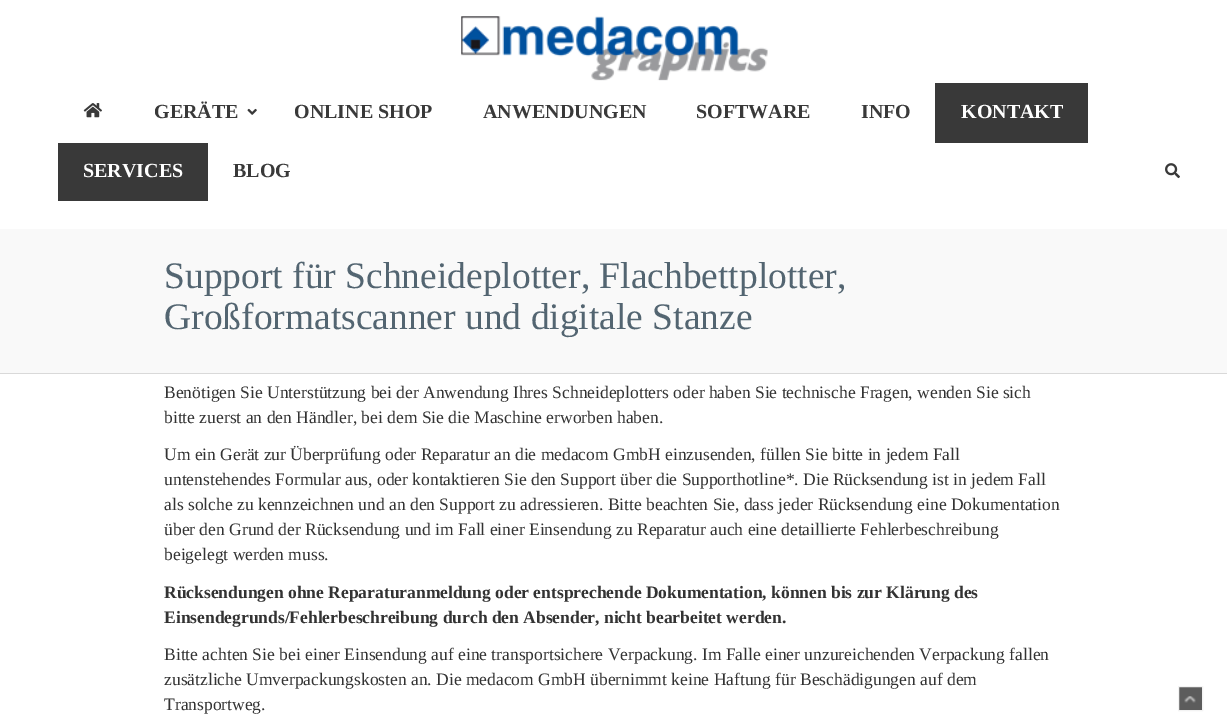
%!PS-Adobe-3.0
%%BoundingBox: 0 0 1227 723
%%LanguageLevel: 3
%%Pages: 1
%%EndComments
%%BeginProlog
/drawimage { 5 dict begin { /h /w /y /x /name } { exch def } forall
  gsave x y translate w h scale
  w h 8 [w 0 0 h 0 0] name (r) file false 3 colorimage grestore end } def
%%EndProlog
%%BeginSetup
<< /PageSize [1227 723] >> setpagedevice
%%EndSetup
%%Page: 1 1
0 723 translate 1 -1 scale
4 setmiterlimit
1 setgray
0 0 1227 723 rectfill
(images/1.raw) 461 16 307 65 drawimage
(images/2.raw) 83 103 19 15 drawimage
(images/3.raw) 247 108 10 7 drawimage
0.224 setgray
935 83 153 60 rectfill
58 143 150 58 rectfill
(images/4.raw) 1165 163 15 16 drawimage
0.976 setgray
0 229 1227 144 rectfill
0.851 setgray
0 373 1227 1 rectfill
0.361 setgray
1179 687 23 23 rectfill
(images/5.raw) 1184 696 12 7 drawimage
0.953 setgray
1178.5 686.5 24 24 rectstroke
/LiberationSerif-Bold [20 0 0 -20 0 0] selectfont
0.224 setgray
154 118 moveto (GERÄTE) show
294 118 moveto (ONLINE SHOP) show
483 118 moveto (ANWENDUNGEN) show
696 118 moveto (SOFTWARE) show
861 118 moveto (INFO) show
1 setgray
961 118 moveto (KONTAKT) show
83 177 moveto (SERVICES) show
0.224 setgray
233 177 moveto (BLOG) show
/LiberationSerif-Regular [37.5 0 0 -37.5 0 0] selectfont
0.325 0.396 0.443 setrgbcolor
164 288 moveto (Support für Schneideplotter, Flachbettplotter,) show
164 329 moveto (Großformatscanner und digitale Stanze) show
/LiberationSerif-Regular [17.5 0 0 -17.5 0 0] selectfont
0.2 setgray
164 398 moveto (Benötigen Sie Unterstützung bei der Anwendung Ihres Schneideplotters oder haben Sie technische Fragen, wenden Sie sich) show
164 423 moveto (bitte zuerst an den Händler, bei dem Sie die Maschine erworben haben.) show
164 460 moveto (Um ein Gerät zur Überprüfung oder Reparatur an die medacom GmbH einzusenden, füllen Sie bitte in jedem Fall) show
164 485 moveto (untenstehendes Formular aus, oder kontaktieren Sie den Support über die Supporthotline*. Die Rücksendung ist in jedem Fall) show
164 510 moveto (als solche zu kennzeichnen und an den Support zu adressieren. Bitte beachten Sie, dass jeder Rücksendung eine Dokumentation) show
164 535 moveto (über den Grund der Rücksendung und im Fall einer Einsendung zu Reparatur auch eine detaillierte Fehlerbeschreibung) show
164 560 moveto (beigelegt werden muss.) show
/LiberationSerif-Bold [17.5 0 0 -17.5 0 0] selectfont
164 598 moveto (Rücksendungen ohne Reparaturanmeldung oder entsprechende Dokumentation, können bis zur Klärung des) show
164 623 moveto (Einsendegrunds/Fehlerbeschreibung durch den Absender, nicht bearbeitet werden.) show
/LiberationSerif-Regular [17.5 0 0 -17.5 0 0] selectfont
164 660 moveto (Bitte achten Sie bei einer Einsendung auf eine transportsichere Verpackung. Im Falle einer unzureichenden Verpackung fallen) show
164 685 moveto (zusätzliche Umverpackungskosten an. Die medacom GmbH übernimmt keine Haftung für Beschädigungen auf dem) show
164 710 moveto (Transportweg.) show
showpage
%%EOF
